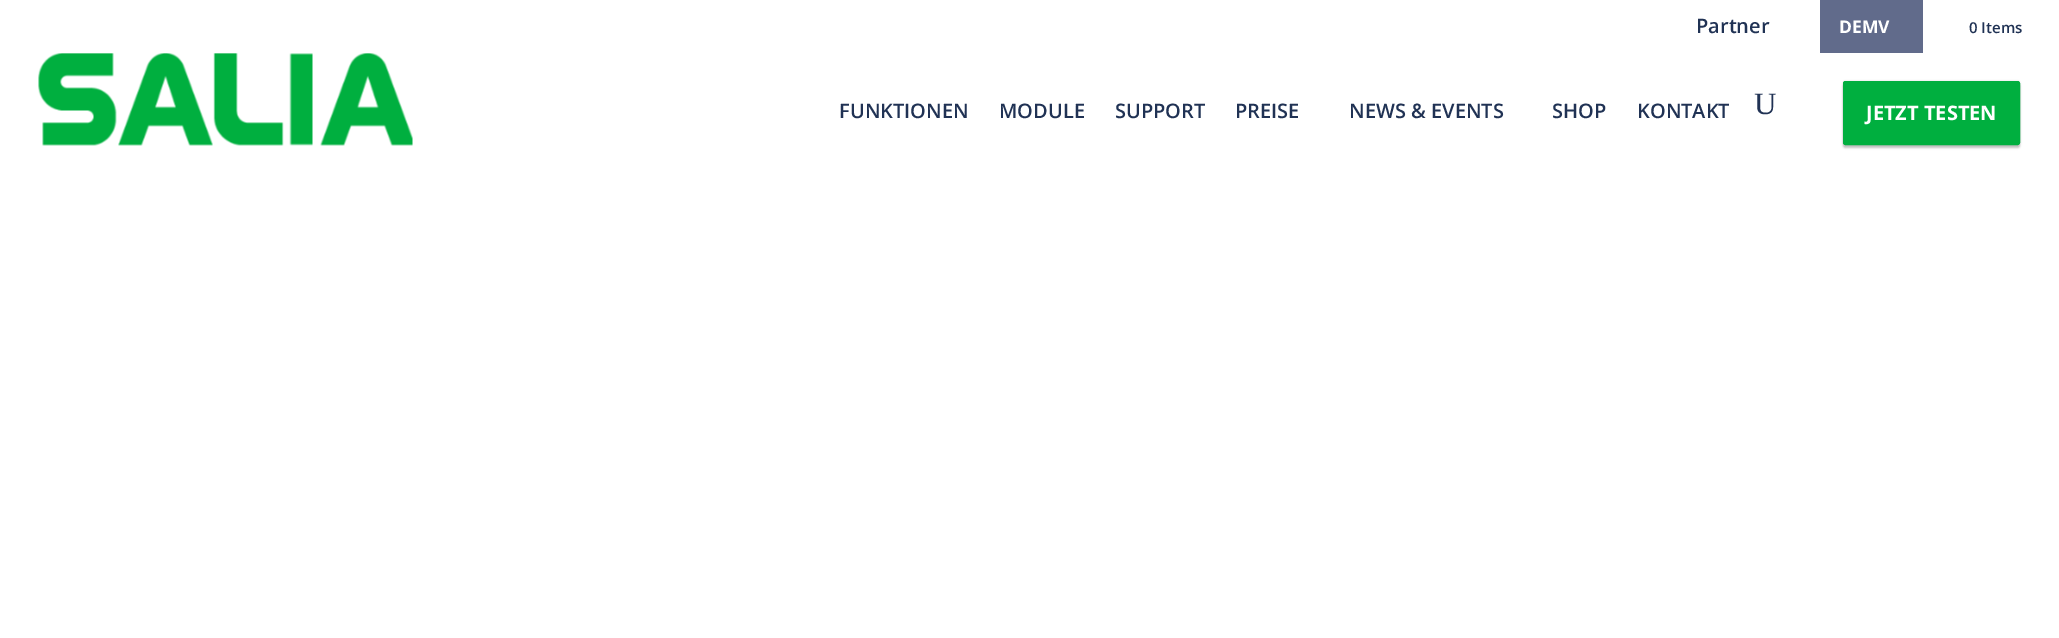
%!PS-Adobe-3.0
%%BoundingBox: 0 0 2059 638
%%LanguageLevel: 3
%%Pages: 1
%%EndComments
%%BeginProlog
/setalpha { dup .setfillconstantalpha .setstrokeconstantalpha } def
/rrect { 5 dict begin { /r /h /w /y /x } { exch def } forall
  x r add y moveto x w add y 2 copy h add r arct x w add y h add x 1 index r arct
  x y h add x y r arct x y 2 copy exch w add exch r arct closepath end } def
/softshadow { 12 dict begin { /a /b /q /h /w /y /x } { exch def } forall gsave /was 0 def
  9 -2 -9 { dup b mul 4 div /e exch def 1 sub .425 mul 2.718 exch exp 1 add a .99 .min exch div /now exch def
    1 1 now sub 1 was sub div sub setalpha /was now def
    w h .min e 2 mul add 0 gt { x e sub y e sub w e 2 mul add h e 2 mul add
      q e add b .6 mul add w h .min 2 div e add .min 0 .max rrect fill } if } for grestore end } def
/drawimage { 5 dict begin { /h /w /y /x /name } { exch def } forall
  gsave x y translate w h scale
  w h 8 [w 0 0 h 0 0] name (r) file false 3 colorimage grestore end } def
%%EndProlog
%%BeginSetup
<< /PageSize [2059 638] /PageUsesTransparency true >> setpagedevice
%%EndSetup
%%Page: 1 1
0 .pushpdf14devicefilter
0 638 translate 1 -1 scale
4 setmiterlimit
1 setgray
0 0 2059 638 rectfill
0.38 0.42 0.545 setrgbcolor
1820 0 103 53 rectfill
(images/1.raw) 38 53 375 93 drawimage
0 setgray
1843 84 177 64 2.5 1 0.24 softshadow
1843 81 177 64 2.5 1 0.12 softshadow
0 0.686 0.247 setrgbcolor
1843.5 81.5 176 63 2 rrect gsave fill grestore
stroke
/OpenSans-SemiBold [20 0 0 -20 0 0] selectfont
0.125 0.196 0.329 setrgbcolor
1696 33 moveto (Partner) show
/OpenSans-Bold [17.5 0 0 -17.5 0 0] selectfont
1 setgray
1839 33 moveto (DEMV) show
/OpenSans-SemiBold [15 0 0 -15 0 0] selectfont
0.125 0.196 0.329 setrgbcolor
1969 33 moveto (0 Items) show
/OpenSans-SemiBold [20 0 0 -20 0 0] selectfont
839 118 moveto (FUNKTIONEN) show
999 118 moveto (MODULE) show
1115 118 moveto (SUPPORT) show
1235 118 moveto (PREISE) show
1349 118 moveto (NEWS & EVENTS) show
1552 118 moveto (SHOP) show
1637 118 moveto (KONTAKT) show
/LiberationSerif-Regular [31 0 0 -31 0 0] selectfont
1754 114 moveto (U) show
/OpenSans-Bold [20 0 0 -20 0 0] selectfont
1 setgray
1866 120 moveto (JETZT TESTEN) show
.poppdf14devicefilter showpage
%%EOF
